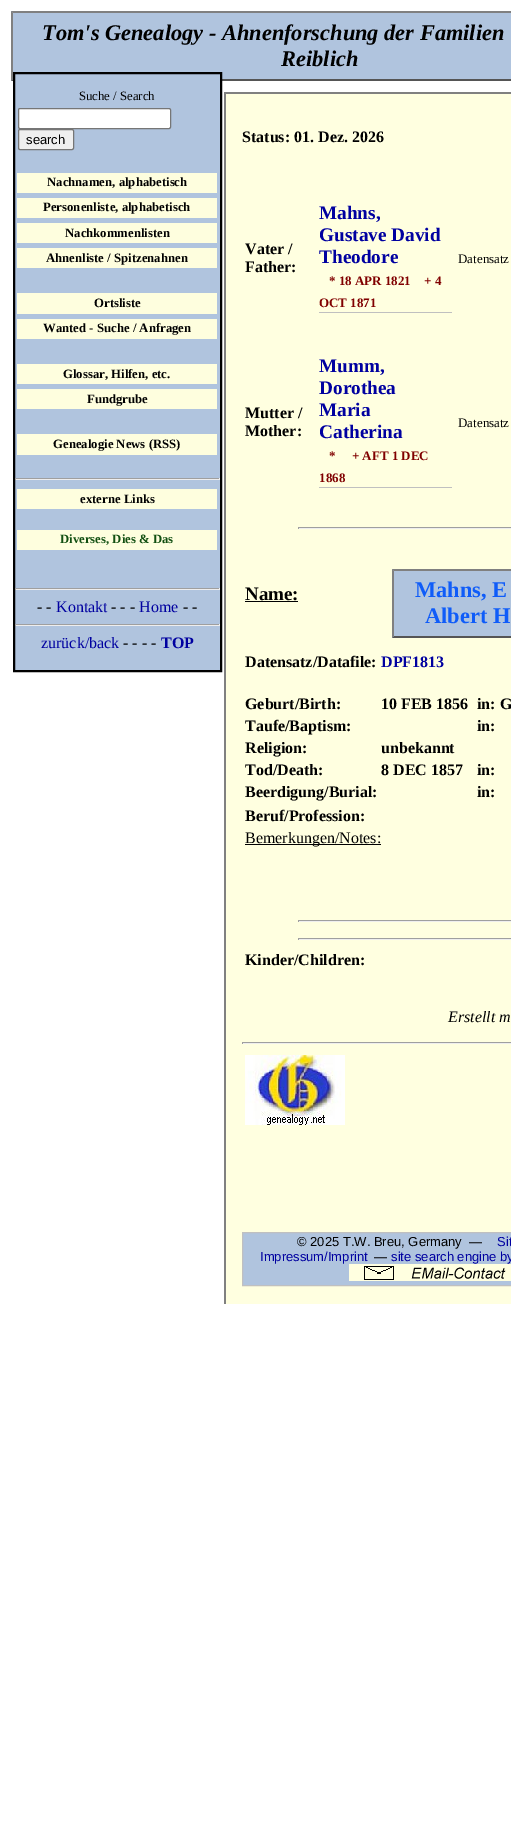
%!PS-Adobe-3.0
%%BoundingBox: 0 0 511 1847
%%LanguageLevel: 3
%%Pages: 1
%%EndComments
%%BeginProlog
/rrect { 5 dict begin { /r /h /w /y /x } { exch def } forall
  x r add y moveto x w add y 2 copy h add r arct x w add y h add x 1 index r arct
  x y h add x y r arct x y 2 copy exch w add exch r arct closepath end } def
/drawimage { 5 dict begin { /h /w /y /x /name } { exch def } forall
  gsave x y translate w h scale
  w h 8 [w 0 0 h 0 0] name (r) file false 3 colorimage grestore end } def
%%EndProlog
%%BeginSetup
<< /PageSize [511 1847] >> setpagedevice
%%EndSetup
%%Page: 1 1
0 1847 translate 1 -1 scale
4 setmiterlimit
1 setgray
0 0 511 1847 rectfill
0.69 0.769 0.871 setrgbcolor
11 11 500 70 rectfill
0.502 setgray
newpath 11 11 moveto 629 11 lineto 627 13 lineto 13 13 lineto closepath fill
0.333 setgray
newpath 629 81 moveto 11 81 lineto 13 79 lineto 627 79 lineto closepath fill
0.502 setgray
newpath 11 81 moveto 11 11 lineto 13 13 lineto 13 79 lineto closepath fill
1 1 0.878 setrgbcolor
226 94 285 1210 rectfill
0.502 setgray
224 92 287 2 rectfill
224 92 2 1212 rectfill
0.753 setgray
319 312 133 1 rectfill
319 487 133 1 rectfill
0.624 setgray
298 527 213 1 rectfill
0.933 setgray
298 528 213 1 rectfill
0.624 setgray
298 527 1 2 rectfill
0 setgray
245 601 53 1 rectfill
0.69 0.769 0.871 setrgbcolor
392 569 119 69 rectfill
0.502 setgray
newpath 392 569 moveto 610 569 lineto 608 571 lineto 394 571 lineto closepath fill
0.333 setgray
newpath 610 638 moveto 392 638 lineto 394 636 lineto 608 636 lineto closepath fill
0.502 setgray
newpath 392 638 moveto 392 569 lineto 394 571 lineto 394 636 lineto closepath fill
0 setgray
245 844 136 1 rectfill
0.624 setgray
298 920 213 1 rectfill
0.933 setgray
298 921 213 1 rectfill
0.624 setgray
298 920 1 2 rectfill
298 938 213 1 rectfill
0.933 setgray
298 939 213 1 rectfill
0.624 setgray
298 938 1 2 rectfill
242 1042 269 1 rectfill
0.933 setgray
242 1043 269 1 rectfill
0.624 setgray
242 1042 1 2 rectfill
(images/1.raw) 245 1055 100 70 drawimage
0.69 0.769 0.871 setrgbcolor
newpath 242.5 1232.5 moveto 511.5 1232.5 lineto 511.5 1285.5 lineto 242.5 1285.5 lineto closepath gsave fill grestore
0.753 setgray
stroke
(images/2.raw) 349 1264 162 17 drawimage
0.69 0.769 0.871 setrgbcolor
15 79 205 591 rectfill
0 setgray
2 setlinewidth
14 73 207 598 rectstroke
1 setgray
18.5 108.5 152 20 1.5 rrect gsave fill grestore
0.463 setgray
1 setlinewidth
stroke
0.937 setgray
18.5 129.5 55 20 1.5 rrect gsave fill grestore
0.463 setgray
stroke
0.996 0.996 0.871 setrgbcolor
17 173 200 20 rectfill
17 198 200 20 rectfill
17 223 200 20 rectfill
17 248 200 20 rectfill
17 293 200 21 rectfill
17 319 200 20 rectfill
17 364 200 20 rectfill
17 389 200 20 rectfill
17 434 200 21 rectfill
0.624 setgray
15 478 205 1 rectfill
0.933 setgray
219 478 1 2 rectfill
15 479 205 1 rectfill
0.624 setgray
15 478 1 2 rectfill
0.996 0.996 0.871 setrgbcolor
17 489 200 20 rectfill
17 530 200 20 rectfill
0.624 setgray
15 588 205 1 rectfill
0.933 setgray
219 588 1 2 rectfill
15 589 205 1 rectfill
0.624 setgray
15 588 1 2 rectfill
15 624 205 1 rectfill
0.933 setgray
219 624 1 2 rectfill
15 625 205 1 rectfill
0.624 setgray
15 624 1 2 rectfill
/LiberationSerif-BoldItalic [22.4 0 0 -22.4 0 0] selectfont
0 setgray
42 40 moveto (Tom's Genealogy - Ahnenforschung der Familien) show
281 66 moveto (Reiblich) show
/LiberationSerif-Bold [16 0 0 -16 0 0] selectfont
242 142 moveto (Status: 01. Dez. 2026) show
245 254 moveto (Vater /) show
245 272 moveto (Father:) show
/LiberationSerif-Bold [19.25 0 0 -19.25 0 0] selectfont
0 0 0.627 setrgbcolor
319 219 moveto (Mahns,) show
319 241 moveto (Gustave David) show
319 263 moveto (Theodore) show
/LiberationSerif-Bold [13 0 0 -13 0 0] selectfont
0.502 0 0 setrgbcolor
329 285 moveto (* 18 APR 1821    + 4) show
319 307 moveto (OCT 1871) show
/LiberationSerif-Regular [13 0 0 -13 0 0] selectfont
0 setgray
458 263 moveto (Datensatz) show
/LiberationSerif-Bold [16 0 0 -16 0 0] selectfont
245 418 moveto (Mutter /) show
245 436 moveto (Mother:) show
/LiberationSerif-Bold [19.25 0 0 -19.25 0 0] selectfont
0 0 0.627 setrgbcolor
319 372 moveto (Mumm,) show
319 394 moveto (Dorothea) show
319 416 moveto (Maria) show
319 438 moveto (Catherina) show
/LiberationSerif-Bold [13 0 0 -13 0 0] selectfont
0.502 0 0 setrgbcolor
329 460 moveto (*     + AFT 1 DEC) show
319 482 moveto (1868) show
/LiberationSerif-Regular [13 0 0 -13 0 0] selectfont
0 setgray
458 427 moveto (Datensatz) show
/LiberationSerif-Bold [19 0 0 -19 0 0] selectfont
245 600 moveto (Name:) show
/LiberationSerif-Bold [22.4 0 0 -22.4 0 0] selectfont
0.059 0.361 0.976 setrgbcolor
415 597 moveto (Mahns, E) show
425 623 moveto (Albert H) show
/LiberationSerif-Bold [16 0 0 -16 0 0] selectfont
0 setgray
245 667 moveto (Datensatz/Datafile:) show
0 0 0.627 setrgbcolor
381 667 moveto (DPF1813) show
0 setgray
245 709 moveto (Geburt/Birth:) show
381 709 moveto (10 FEB 1856) show
477 709 moveto (in: G) show
245 731 moveto (Taufe/Baptism:) show
477 731 moveto (in:) show
245 753 moveto (Religion:) show
381 753 moveto (unbekannt) show
245 775 moveto (Tod/Death:) show
381 775 moveto (8 DEC 1857) show
477 775 moveto (in:) show
245 797 moveto (Beerdigung/Burial:) show
477 797 moveto (in:) show
245 821 moveto (Beruf/Profession:) show
/LiberationSerif-Regular [16 0 0 -16 0 0] selectfont
245 843 moveto (Bemerkungen/Notes:) show
/LiberationSerif-Bold [16 0 0 -16 0 0] selectfont
245 965 moveto (Kinder/Children:) show
/LiberationSerif-Italic [16 0 0 -16 0 0] selectfont
448 1022 moveto (Erstellt m) show
/LiberationSans-Regular [13 0 0 -13 0 0] selectfont
297 1246 moveto (© 2025 T.W. Breu, Germany  —) show
0 0 0.627 setrgbcolor
497 1246 moveto (Sit) show
260 1261 moveto (Impressum/Imprint) show
0 setgray
374 1261 moveto (—) show
0 0 0.627 setrgbcolor
391 1261 moveto (site search engine by) show
/LiberationSerif-Regular [12.75 0 0 -12.75 0 0] selectfont
0 setgray
79 100 moveto (Suche / Search) show
/LiberationSans-Regular [13 0 0 -13 0 0] selectfont
26 144 moveto (search) show
/LiberationSerif-Bold [12.75 0 0 -12.75 0 0] selectfont
47 186 moveto (Nachnamen, alphabetisch) show
43 211 moveto (Personenliste, alphabetisch) show
65 237 moveto (Nachkommenlisten) show
46 262 moveto (Ahnenliste / Spitzenahnen) show
94 307 moveto (Ortsliste) show
43 332 moveto (Wanted - Suche / Anfragen) show
63 378 moveto (Glossar, Hilfen, etc.) show
87 403 moveto (Fundgrube) show
53 448 moveto (Genealogie News \(RSS\)) show
80 503 moveto (externe Links) show
0.067 0.31 0.067 setrgbcolor
60 543 moveto (Diverses, Dies & Das) show
/LiberationSerif-Regular [16 0 0 -16 0 0] selectfont
0 setgray
37 612 moveto (- -) show
0 0 0.627 setrgbcolor
56 612 moveto (Kontakt) show
0 setgray
111 612 moveto (- - -) show
0 0 0.627 setrgbcolor
139 612 moveto (Home) show
0 setgray
183 612 moveto (- -) show
0 0 0.627 setrgbcolor
41 648 moveto (zurück/back) show
0 setgray
123 648 moveto (- - - -) show
/LiberationSerif-Bold [16 0 0 -16 0 0] selectfont
0 0 0.627 setrgbcolor
161 648 moveto (TOP) show
showpage
%%EOF
